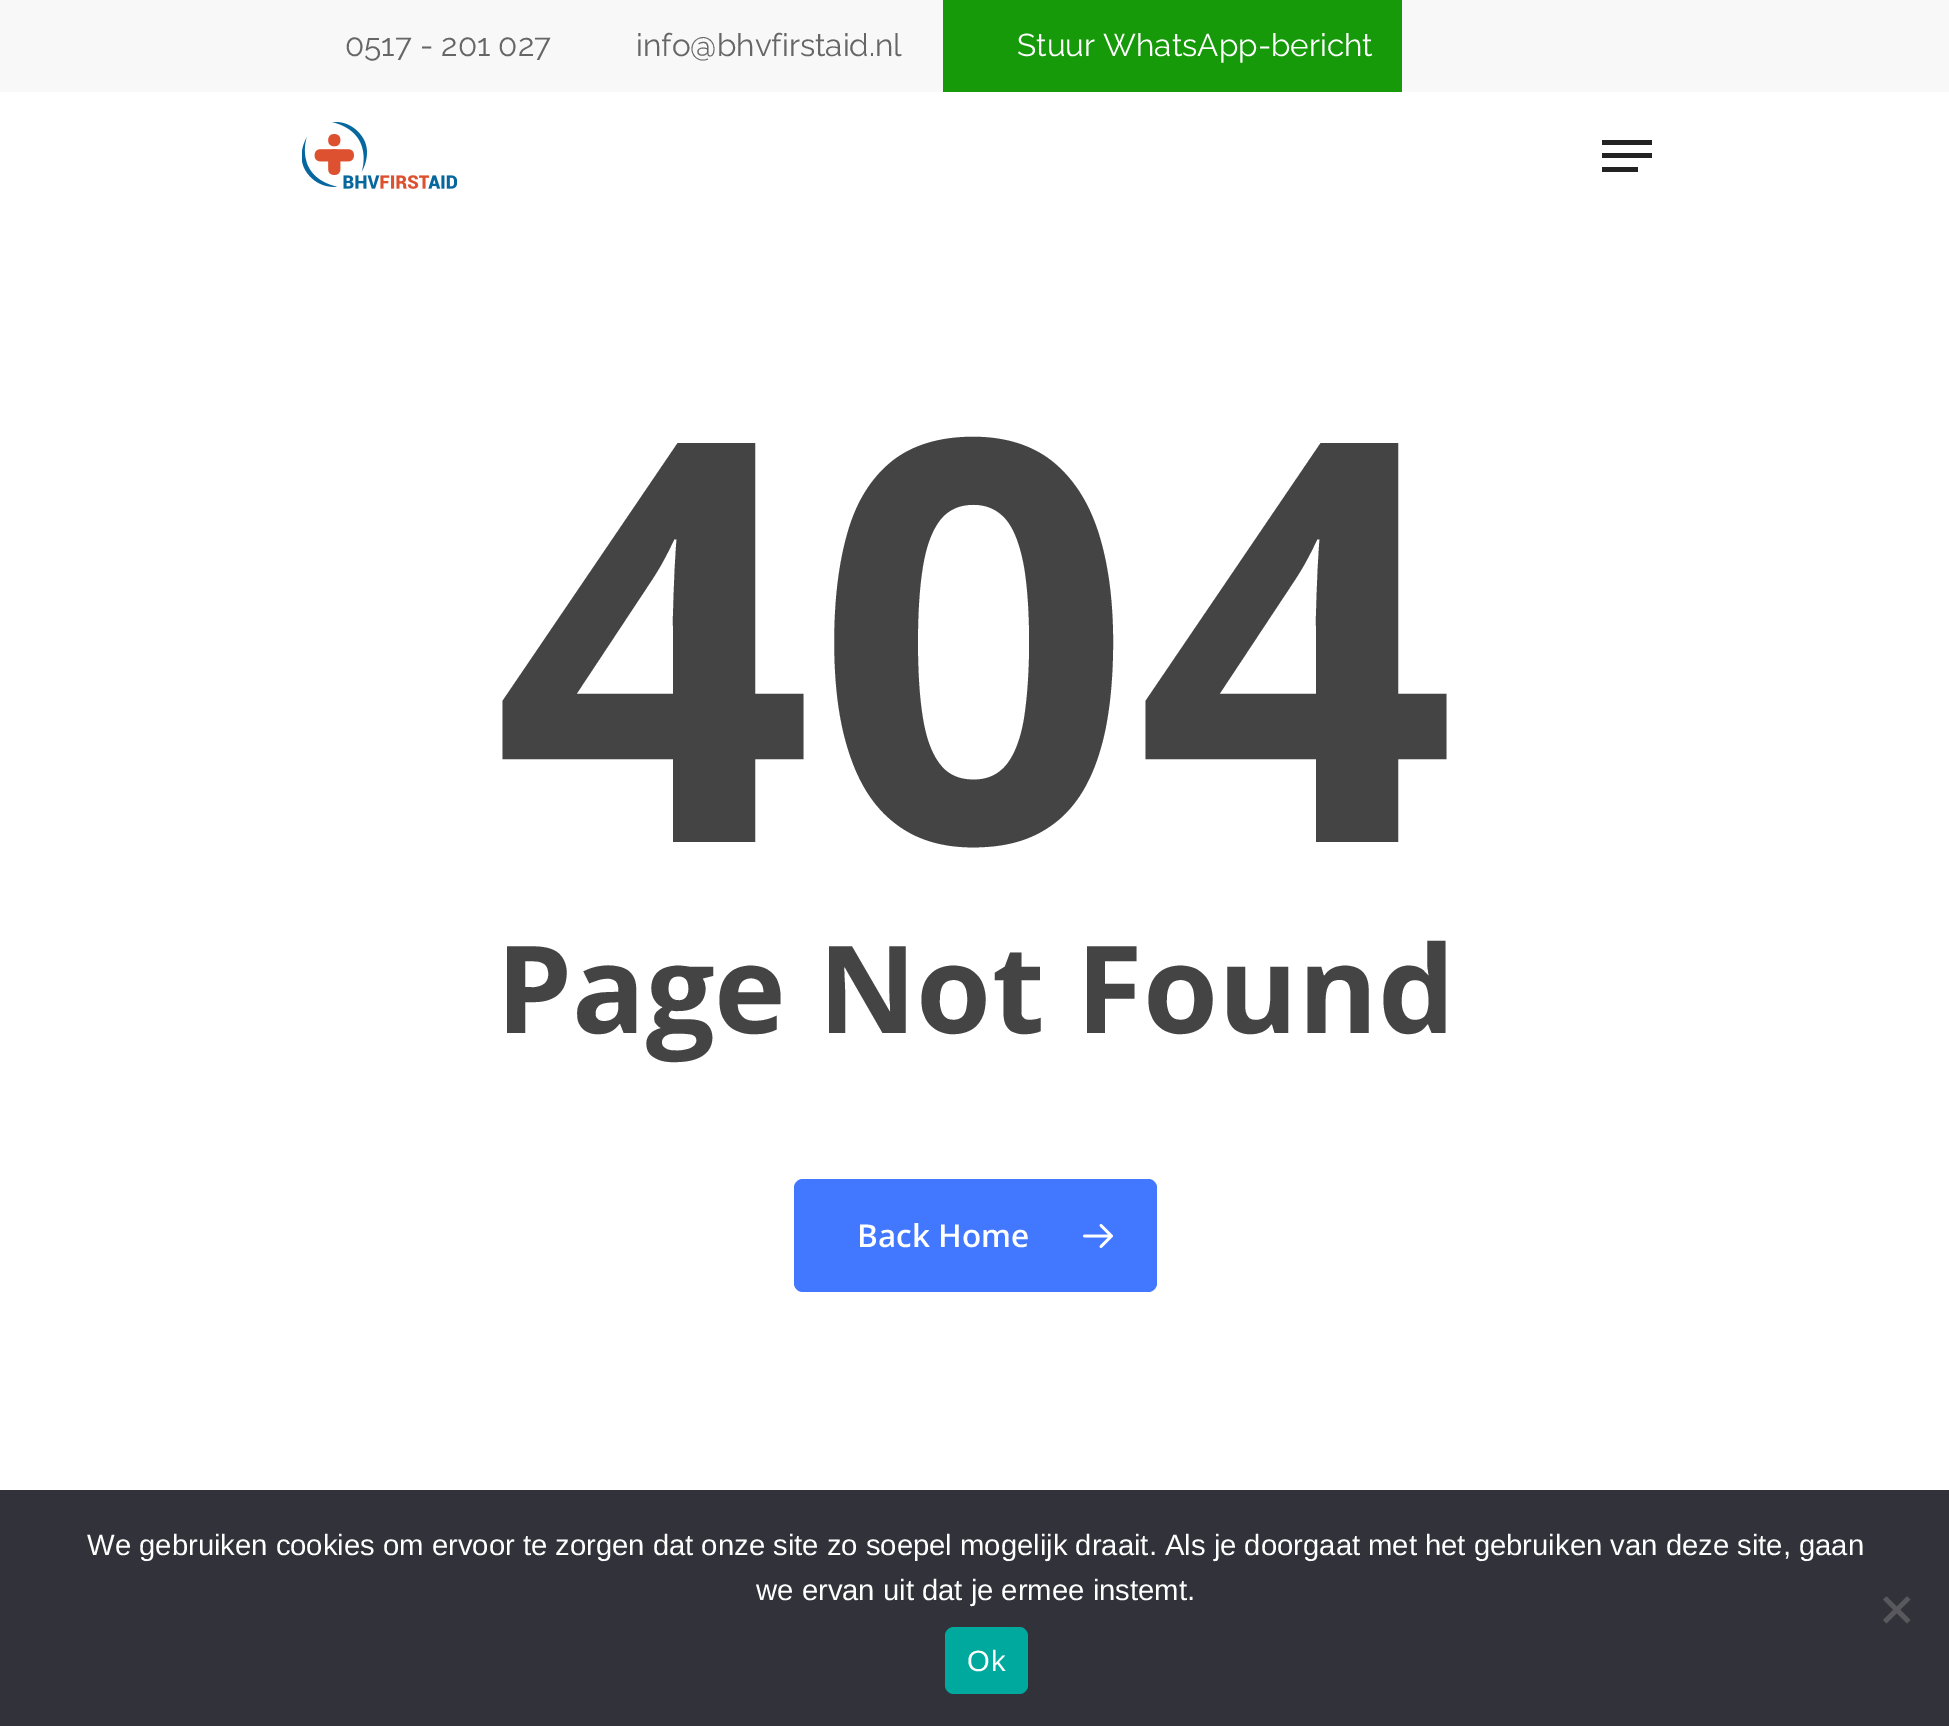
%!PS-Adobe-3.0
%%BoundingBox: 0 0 1949 1726
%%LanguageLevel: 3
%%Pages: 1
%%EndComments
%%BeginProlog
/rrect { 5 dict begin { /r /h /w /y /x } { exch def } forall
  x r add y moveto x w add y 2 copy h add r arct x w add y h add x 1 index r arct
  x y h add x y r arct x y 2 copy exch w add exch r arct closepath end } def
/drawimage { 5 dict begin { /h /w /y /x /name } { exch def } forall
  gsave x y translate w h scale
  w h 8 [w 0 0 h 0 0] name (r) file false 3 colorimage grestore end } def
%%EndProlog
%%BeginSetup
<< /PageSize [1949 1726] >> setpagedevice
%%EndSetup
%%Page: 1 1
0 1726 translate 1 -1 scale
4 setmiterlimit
1 setgray
0 0 1949 1726 rectfill
0.973 setgray
0 0 1949 92 rectfill
0.086 0.604 0.039 setrgbcolor
943 0 459 92 rectfill
(images/1.raw) 302 122 155 67 drawimage
0.133 setgray
1602 140 50 5 rectfill
1602 167 36 5 rectfill
1602 153 50 5 rectfill
0.259 0.467 1 setrgbcolor
794 1179 363 113 9 rrect fill
(images/2.raw) 1083 1224 30 24 drawimage
0.196 0.196 0.227 setrgbcolor
0 1490 1949 236 rectfill
0.349 0.349 0.365 setrgbcolor
newpath 1907 1596.5 moveto 1910.5 1599.5 lineto 1886.5 1623.5 lineto 1883 1620 lineto closepath fill
newpath 1883 1599.5 moveto 1886.5 1596.5 lineto 1910.5 1620 lineto 1907 1623.5 lineto closepath fill
0 0.663 0.616 setrgbcolor
945 1627 83 67 9 rrect fill
/Raleway-Regular [31.5 0 0 -31.5 0 0] selectfont
0.4 setgray
345 56 moveto (0517 - 201 027) show
636 56 moveto (info@bhvfirstaid.nl) show
1 setgray
1017 56 moveto (Stuur WhatsApp-bericht) show
/OpenSans-Bold [562 0 0 -562 0 0] selectfont
0.267 setgray
493 842 moveto (404) show
/OpenSans-Bold [121.5 0 0 -121.5 0 0] selectfont
496 1033 moveto (Page Not Found) show
/OpenSans-SemiBold [31.5 0 0 -31.5 0 0] selectfont
1 setgray
857 1247 moveto (Back Home) show
/LiberationSans-Regular [29.25 0 0 -29.25 0 0] selectfont
87 1555 moveto (We gebruiken cookies om ervoor te zorgen dat onze site zo soepel mogelijk draait. Als je doorgaat met het gebruiken van deze site, gaan) show
756 1600 moveto (we ervan uit dat je ermee instemt.) show
967 1671 moveto 1 0 (Ok) ashow
showpage
%%EOF
